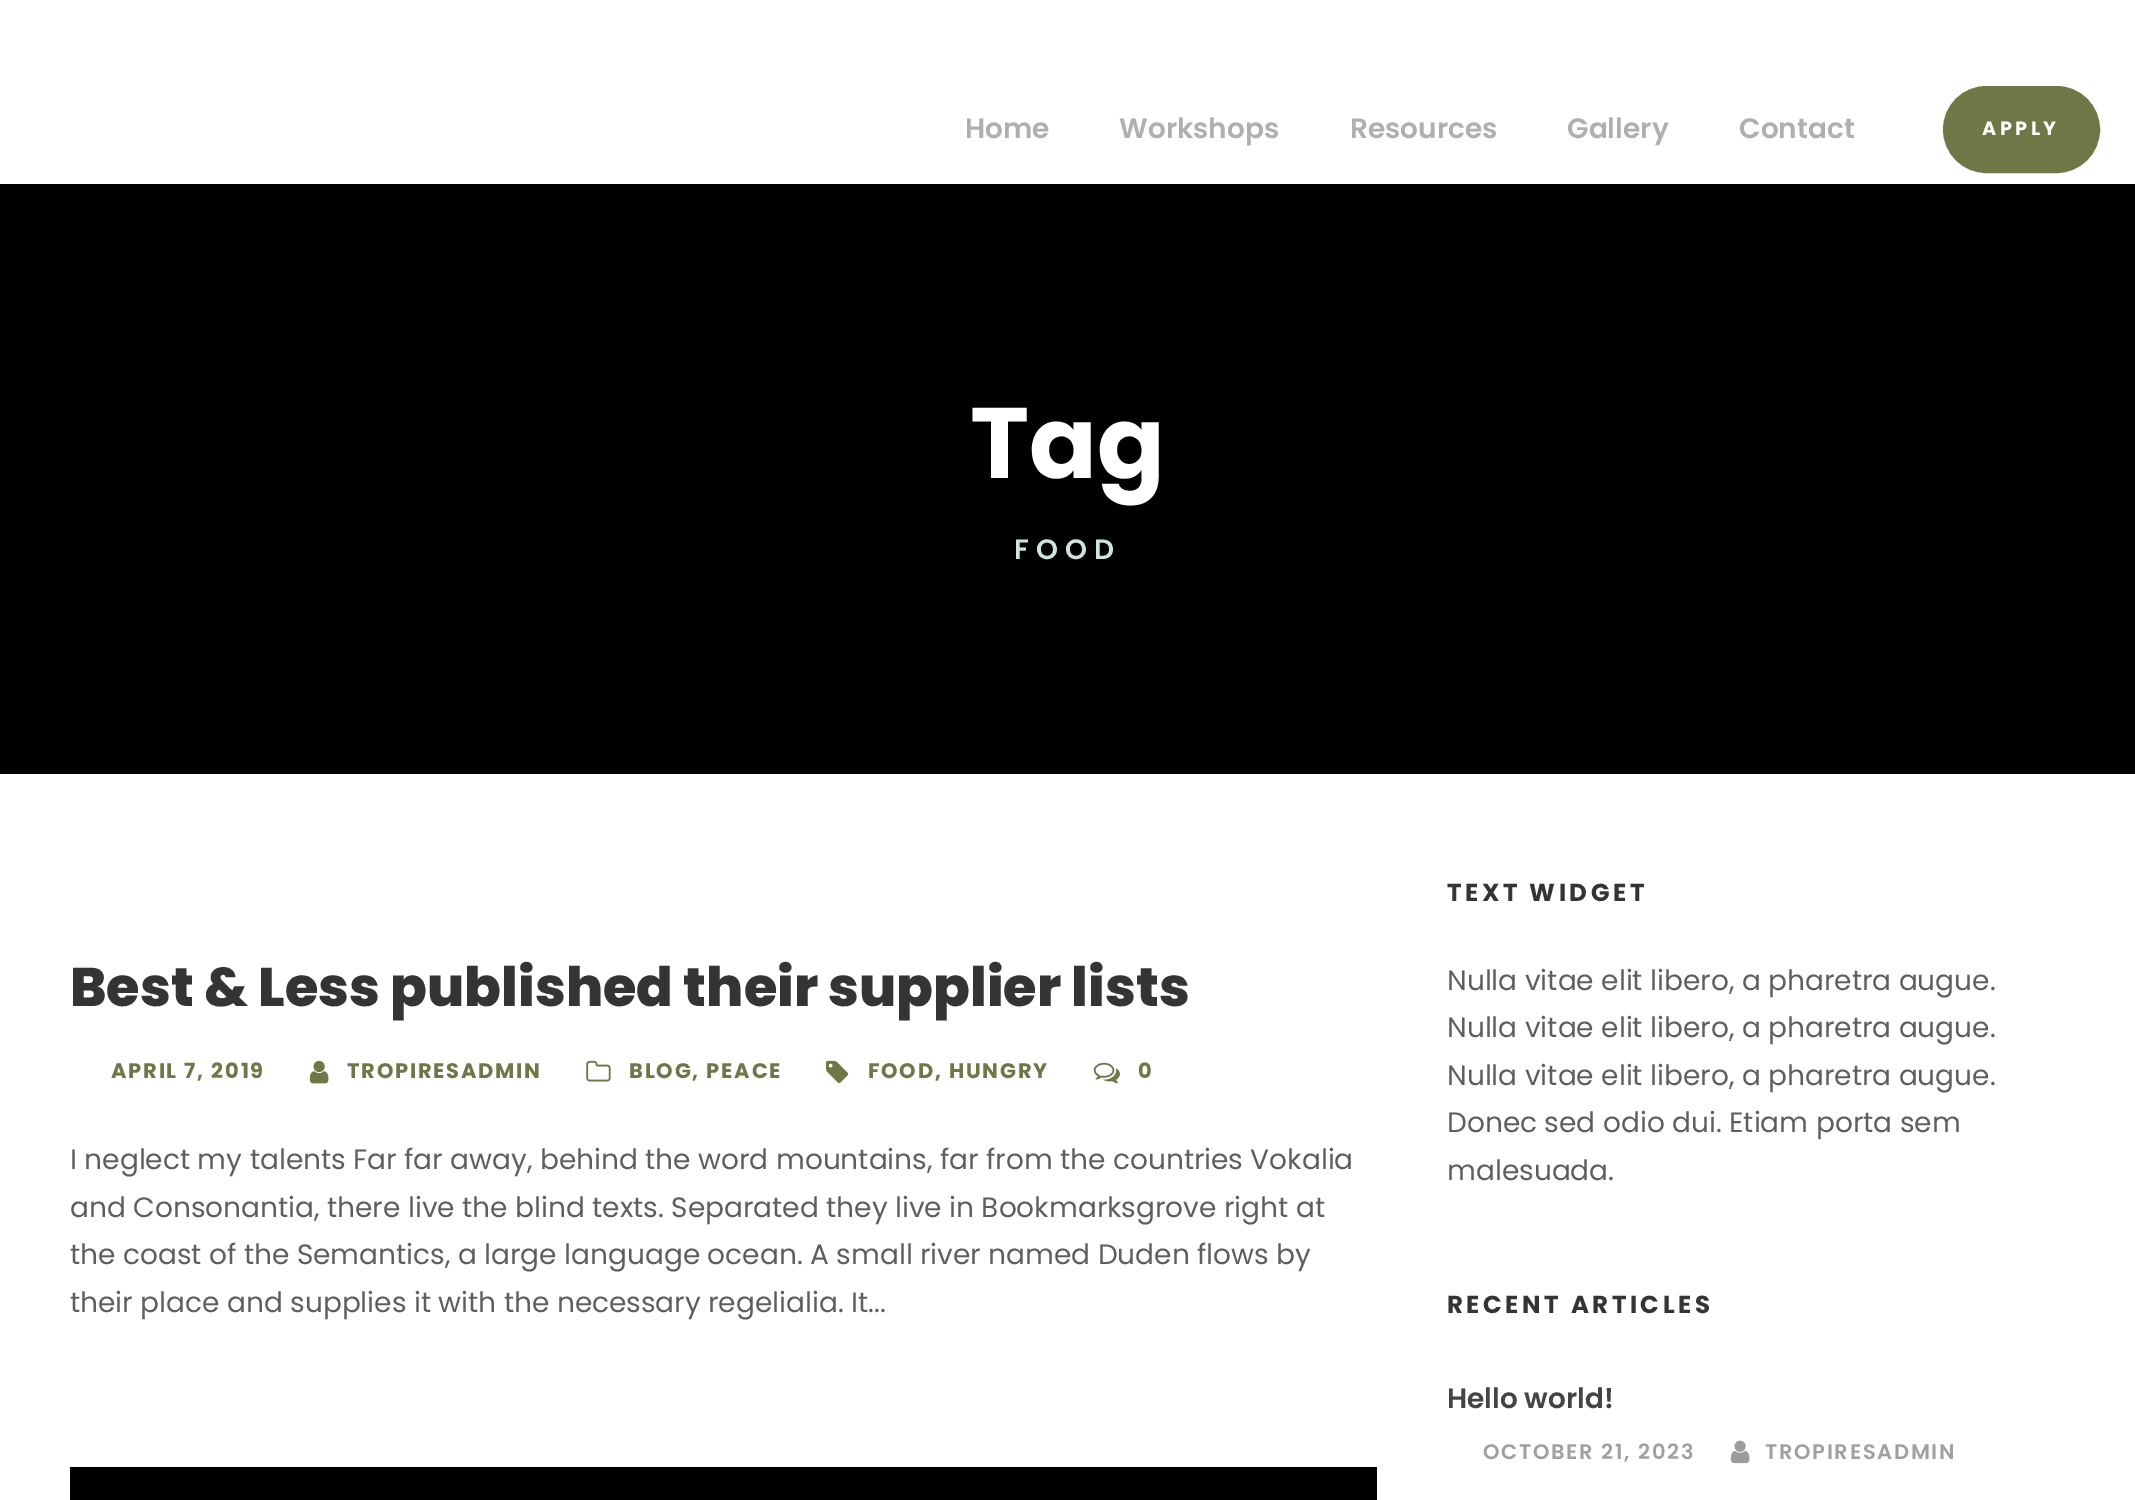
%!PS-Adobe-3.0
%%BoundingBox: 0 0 2135 1500
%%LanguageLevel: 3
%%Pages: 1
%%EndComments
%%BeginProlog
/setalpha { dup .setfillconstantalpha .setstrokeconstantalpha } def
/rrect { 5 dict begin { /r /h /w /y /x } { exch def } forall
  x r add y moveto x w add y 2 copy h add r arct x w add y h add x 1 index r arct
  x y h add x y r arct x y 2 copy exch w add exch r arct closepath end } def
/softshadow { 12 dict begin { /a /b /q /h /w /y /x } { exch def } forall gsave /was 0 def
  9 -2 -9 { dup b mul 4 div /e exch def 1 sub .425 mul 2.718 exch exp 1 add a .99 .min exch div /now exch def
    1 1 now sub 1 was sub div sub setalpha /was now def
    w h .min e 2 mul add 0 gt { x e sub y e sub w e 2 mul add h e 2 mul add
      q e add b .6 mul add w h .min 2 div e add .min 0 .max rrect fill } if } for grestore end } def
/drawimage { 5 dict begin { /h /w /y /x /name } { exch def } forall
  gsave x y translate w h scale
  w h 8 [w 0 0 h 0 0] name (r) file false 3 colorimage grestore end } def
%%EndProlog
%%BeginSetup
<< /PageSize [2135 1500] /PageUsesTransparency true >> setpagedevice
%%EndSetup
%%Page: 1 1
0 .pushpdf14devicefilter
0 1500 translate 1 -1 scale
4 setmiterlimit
1 setgray
0 0 2135 1500 rectfill
0 setgray
0 184 2135 590 rectfill
0 0 2135 184 0 9 0.1 softshadow
1 setgray
0 0 2135 184 rectfill
0.435 0.467 0.275 setrgbcolor
1945 88 153 83 41.5 rrect gsave fill grestore
4 setlinewidth
stroke
(images/1.raw) 309 1060 20 24 drawimage
(images/2.raw) 586 1060 25 22 drawimage
(images/3.raw) 826 1060 23 23 drawimage
(images/4.raw) 1093 1062 27 22 drawimage
0 setgray
70 1467 1307 33 rectfill
(images/5.raw) 1730 1440 20 24 drawimage
/Poppins-SemiBold [28 0 0 -28 0 0] selectfont
0.686 setgray
965 138 moveto (Home) show
1119 138 moveto (Workshops) show
1350 138 moveto (Resources) show
1567 138 moveto (Gallery) show
1739 138 moveto (Contact) show
/Poppins-Bold [19.25 0 0 -19.25 0 0] selectfont
1 setgray
1982 135 moveto 3.5 0 (APPLY) ashow
/Poppins-Bold [100 0 0 -100 0 0] selectfont
970 478 moveto (Tag) show
/Poppins-SemiBold [28 0 0 -28 0 0] selectfont
0.8 0.898 0.855 setrgbcolor
1014 559 moveto 7 0 (FOOD) ashow
/Poppins-ExtraBold [54.25 0 0 -54.25 0 0] selectfont
0.204 setgray
70 1006 moveto (Best & Less published their supplier lists) show
/Poppins-Bold [21 0 0 -21 0 0] selectfont
0.435 0.467 0.275 setrgbcolor
111 1078 moveto 1.75 0 (APRIL 7, 2019) ashow
347 1078 moveto 1.75 0 (TROPIRESADMIN) ashow
629 1078 moveto 1.75 0 (BLOG, PEACE) ashow
868 1078 moveto 1.75 0 (FOOD, HUNGRY) ashow
1138 1078 moveto 1.75 0 (0) ashow
/Poppins-Regular [28 0 0 -28 0 0] selectfont
0.369 setgray
70 1169 moveto (I neglect my talents Far far away, behind the word mountains, far from the countries Vokalia) show
70 1217 moveto (and Consonantia, there live the blind texts. Separated they live in Bookmarksgrove right at) show
70 1264 moveto (the coast of the Semantics, a large language ocean. A small river named Duden flows by) show
70 1312 moveto (their place and supplies it with the necessary regelialia. It...) show
/Poppins-Bold [24.5 0 0 -24.5 0 0] selectfont
0.204 setgray
1447 901 moveto 3.5 0 (TEXT WIDGET) ashow
/Poppins-Regular [28 0 0 -28 0 0] selectfont
0.369 setgray
1447 990 moveto (Nulla vitae elit libero, a pharetra augue.) show
1447 1037 moveto (Nulla vitae elit libero, a pharetra augue.) show
1447 1085 moveto (Nulla vitae elit libero, a pharetra augue.) show
1447 1132 moveto (Donec sed odio dui. Etiam porta sem) show
1447 1180 moveto (malesuada.) show
/Poppins-Bold [24.5 0 0 -24.5 0 0] selectfont
0.204 setgray
1447 1313 moveto 3.5 0 (RECENT ARTICLES) ashow
/Poppins-SemiBold [28 0 0 -28 0 0] selectfont
0.267 setgray
1447 1408 moveto (Hello world!) show
/Poppins-SemiBold [21 0 0 -21 0 0] selectfont
0.627 setgray
1483 1459 moveto 1.75 0 (OCTOBER 21, 2023) ashow
1765 1459 moveto 1.75 0 (TROPIRESADMIN) ashow
.poppdf14devicefilter showpage
%%EOF
